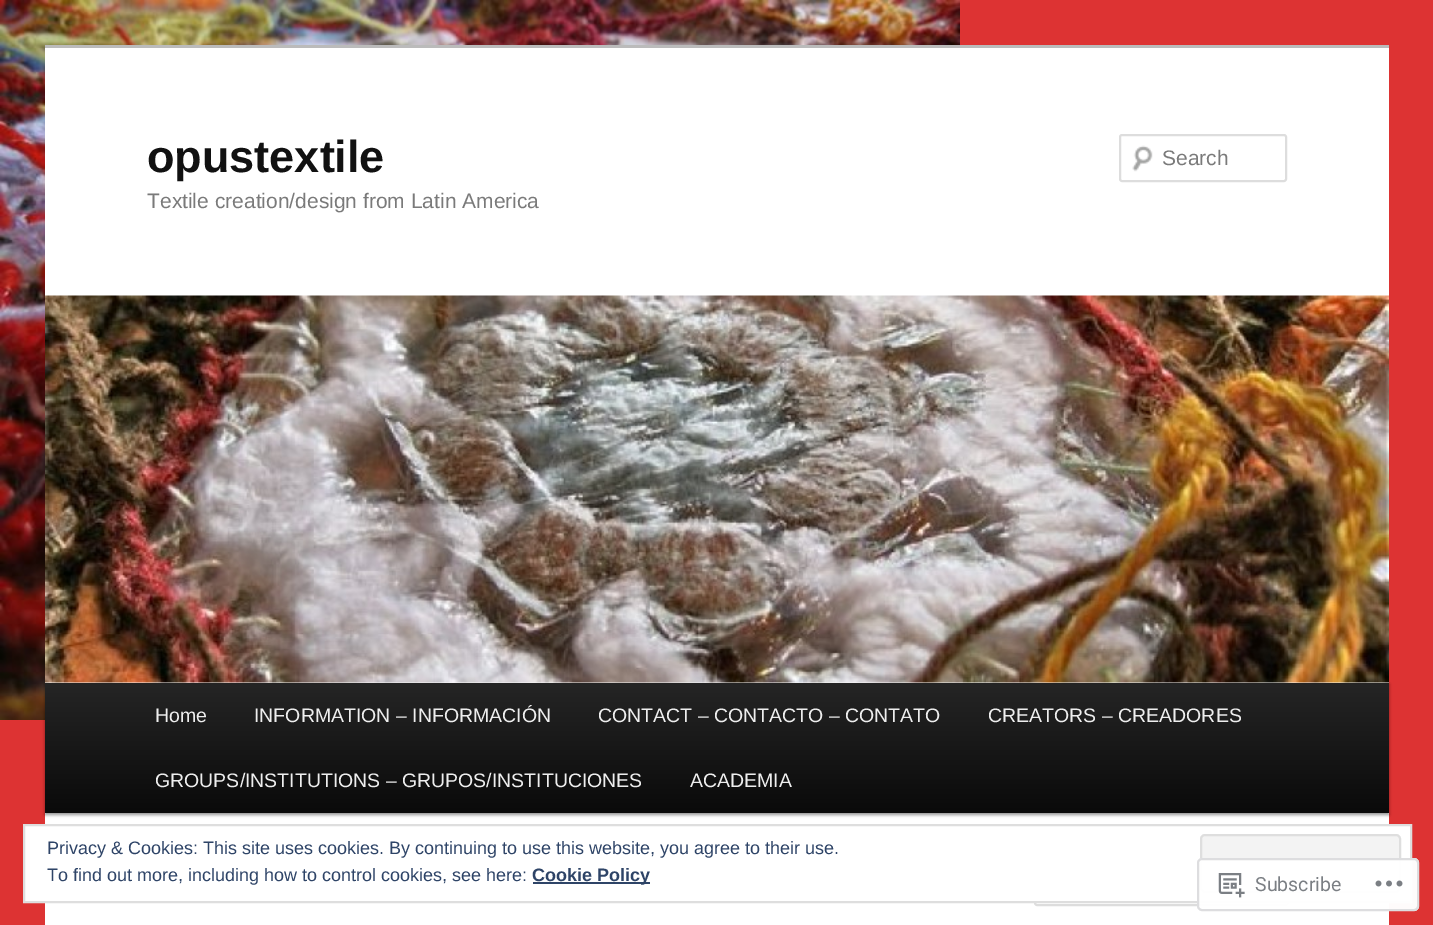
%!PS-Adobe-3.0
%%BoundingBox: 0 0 1433 925
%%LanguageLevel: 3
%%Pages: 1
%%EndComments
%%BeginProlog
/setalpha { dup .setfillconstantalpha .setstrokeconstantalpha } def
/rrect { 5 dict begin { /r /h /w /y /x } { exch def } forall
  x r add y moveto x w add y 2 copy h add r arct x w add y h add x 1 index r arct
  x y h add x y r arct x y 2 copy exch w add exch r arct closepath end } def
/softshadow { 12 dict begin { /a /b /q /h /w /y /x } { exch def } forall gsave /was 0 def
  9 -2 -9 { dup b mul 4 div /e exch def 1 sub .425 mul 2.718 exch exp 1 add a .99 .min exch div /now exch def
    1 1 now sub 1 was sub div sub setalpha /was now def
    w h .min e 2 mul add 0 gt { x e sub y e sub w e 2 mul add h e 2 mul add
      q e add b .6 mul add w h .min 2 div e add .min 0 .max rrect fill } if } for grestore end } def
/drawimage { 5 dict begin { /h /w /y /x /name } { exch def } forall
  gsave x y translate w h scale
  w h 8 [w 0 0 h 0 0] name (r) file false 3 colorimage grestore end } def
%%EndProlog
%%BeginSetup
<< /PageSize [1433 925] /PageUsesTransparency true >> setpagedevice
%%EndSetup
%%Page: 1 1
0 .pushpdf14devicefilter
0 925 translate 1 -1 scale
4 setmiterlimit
0.867 0.2 0.2 setrgbcolor
0 0 1433 925 rectfill
(images/1.raw) 0 0 960 720 drawimage
1 setgray
45 48 1344 877 rectfill
0.733 setgray
45 45 1344 3 rectfill
(images/2.raw) 1132 145 21 27 drawimage
0.867 setgray
2 setlinewidth
1120 135 166 46 2 rrect stroke
0 setgray
45 684 1344 131 0 1.5 0.4 softshadow
(images/3.raw) 45 295 1344 388 drawimage
gsave newpath 45 683 moveto 1389 683 lineto 1389 813 lineto 45 813 lineto closepath clip newpath
<< /ShadingType 2 /ColorSpace /DeviceRGB /Coords [717 682 717 813] /Extend [true true] /Function << /FunctionType 2 /Domain [0 1] /C0 [0.145 0.145 0.145] /C1 [0.039 0.039 0.039] /N 1 >> >> shfill grestore
0.867 setgray
1035 859 253 46 2 rrect stroke
1 setgray
newpath 24 825 moveto 1411 825 lineto 1411 902 lineto 24 902 lineto closepath gsave fill grestore
0.871 setgray
stroke
0.953 setgray
1201 835 199 57 4 rrect gsave fill grestore
0.871 setgray
stroke
0.18 0.267 0.404 setrgbcolor
533 882 117 2 rectfill
0.98 setalpha
1 setgray
1197 858 222 53 5 rrect fill
0.863 0.863 0.871 setrgbcolor
1198 859 220 51 4 rrect stroke
1 setalpha
(images/4.raw) 1218 873 27 25 drawimage
(images/5.raw) 1375 880 28 7 drawimage
/LiberationSans-Bold [45 0 0 -45 0 0] selectfont
0.067 setgray
147 172 moveto (opustextile) show
/LiberationSans-Regular [21 0 0 -21 0 0] selectfont
0.478 setgray
147 208 moveto (Textile creation/design from Latin America) show
1162 165 moveto (Search) show
/LiberationSans-Regular [19.5 0 0 -19.5 0 0] selectfont
0.933 setgray
155 722 moveto (Home) show
254 722 moveto (INFORMATION – INFORMACIÓN) show
598 722 moveto (CONTACT – CONTACTO – CONTATO) show
988 722 moveto (CREATORS – CREADORES) show
155 787 moveto (GROUPS/INSTITUTIONS – GRUPOS/INSTITUCIONES) show
690 787 moveto (ACADEMIA) show
/LiberationSans-Regular [18 0 0 -18 0 0] selectfont
0.18 0.267 0.404 setrgbcolor
47 854 moveto (Privacy & Cookies: This site uses cookies. By continuing to use this website, you agree to their use.) show
47 881 moveto (To find out more, including how to control cookies, see here:) show
/LiberationSans-Bold [18 0 0 -18 0 0] selectfont
532 881 moveto (Cookie Policy) show
/Roboto-Regular [19.5 0 0 -19.5 0 0] selectfont
0.482 0.498 0.518 setrgbcolor
1255 891 moveto (Subscribe) show
.poppdf14devicefilter showpage
%%EOF
